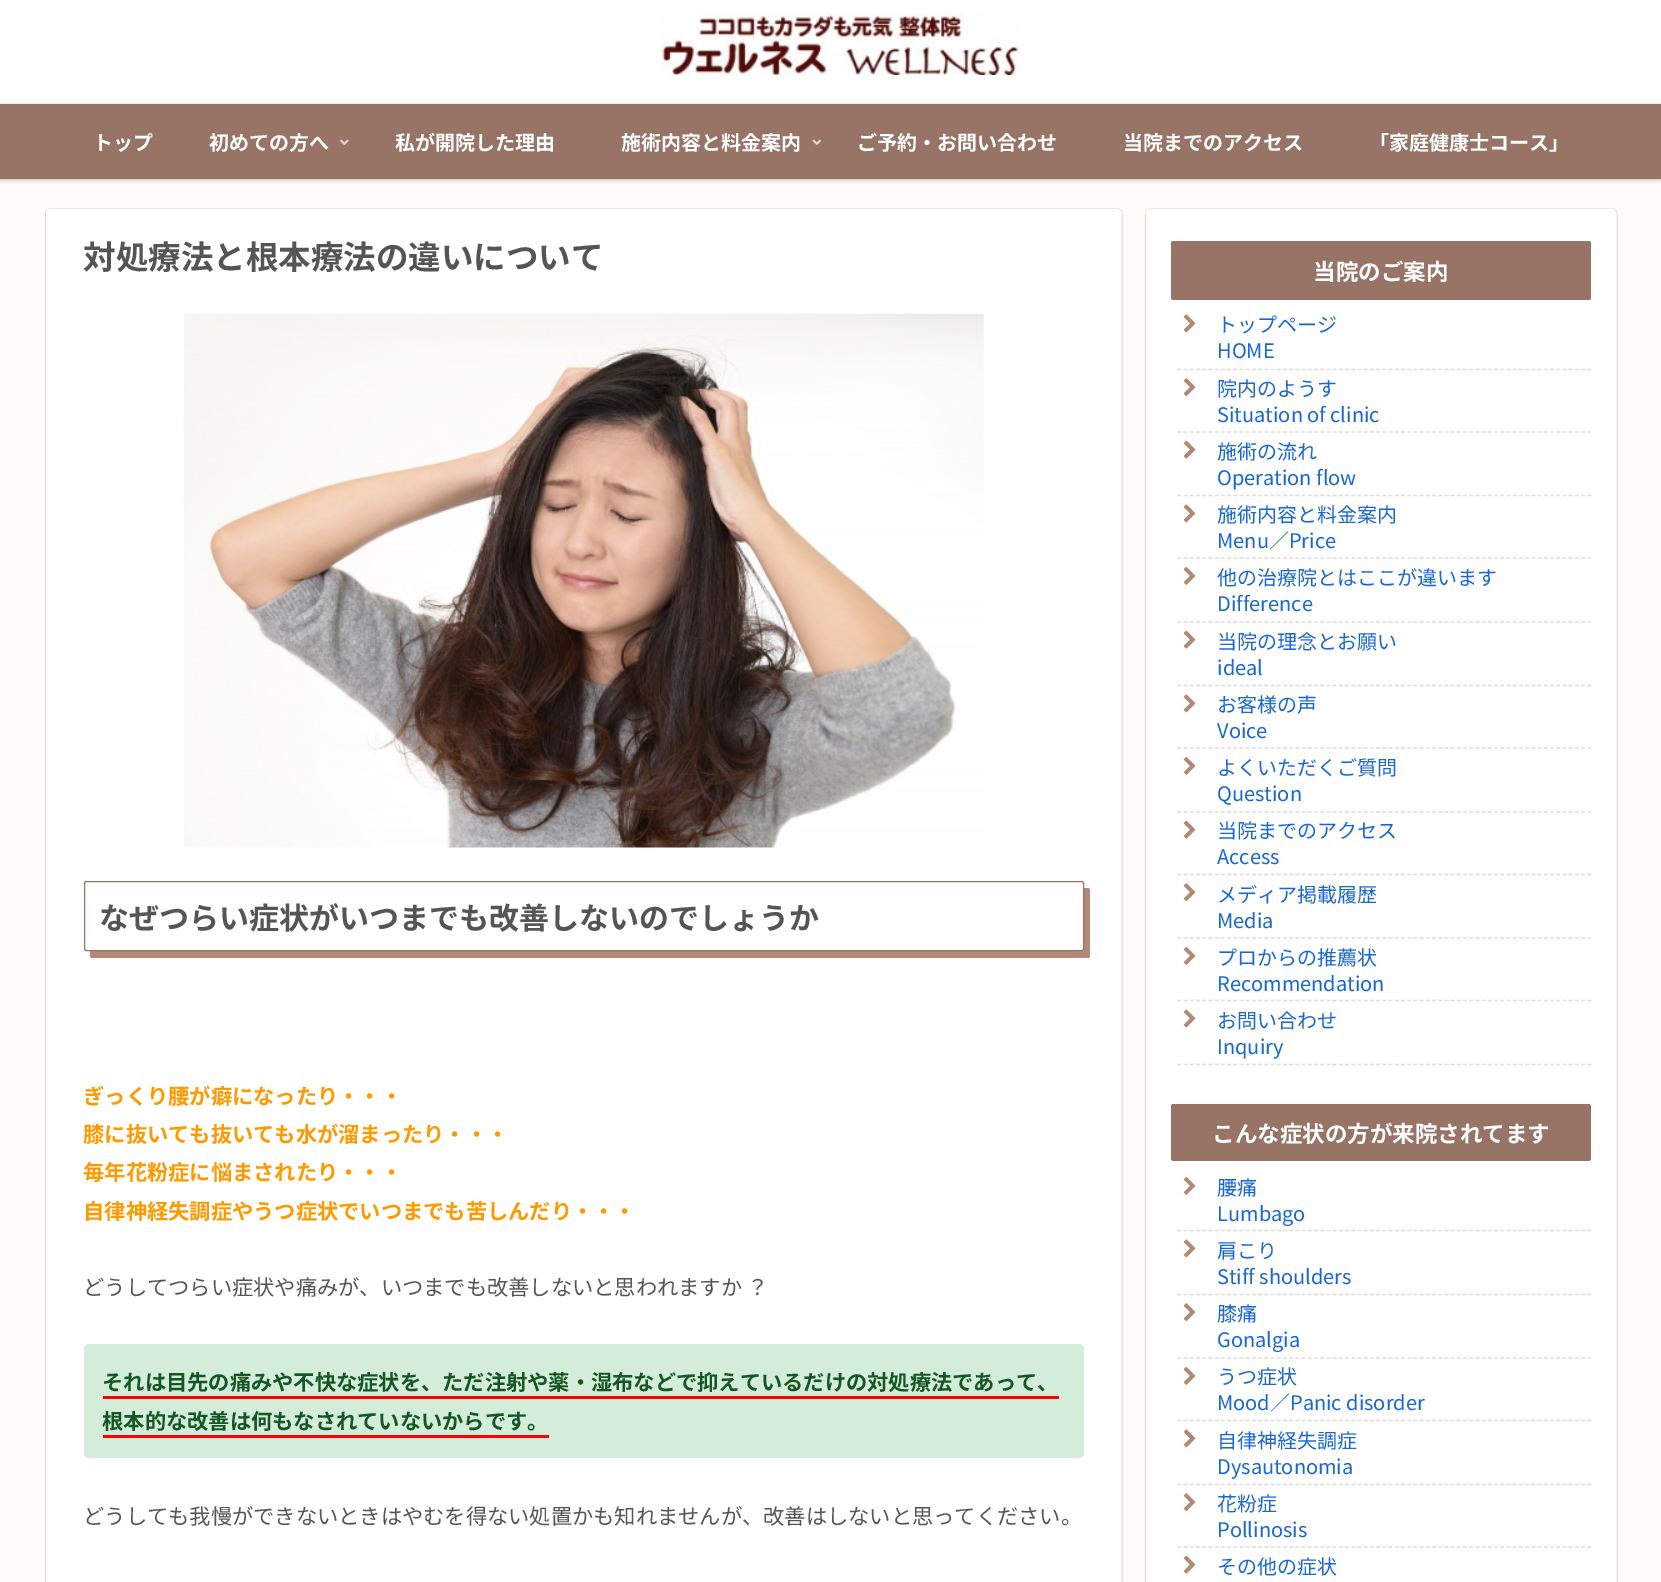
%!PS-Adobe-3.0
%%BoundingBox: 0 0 1661 1582
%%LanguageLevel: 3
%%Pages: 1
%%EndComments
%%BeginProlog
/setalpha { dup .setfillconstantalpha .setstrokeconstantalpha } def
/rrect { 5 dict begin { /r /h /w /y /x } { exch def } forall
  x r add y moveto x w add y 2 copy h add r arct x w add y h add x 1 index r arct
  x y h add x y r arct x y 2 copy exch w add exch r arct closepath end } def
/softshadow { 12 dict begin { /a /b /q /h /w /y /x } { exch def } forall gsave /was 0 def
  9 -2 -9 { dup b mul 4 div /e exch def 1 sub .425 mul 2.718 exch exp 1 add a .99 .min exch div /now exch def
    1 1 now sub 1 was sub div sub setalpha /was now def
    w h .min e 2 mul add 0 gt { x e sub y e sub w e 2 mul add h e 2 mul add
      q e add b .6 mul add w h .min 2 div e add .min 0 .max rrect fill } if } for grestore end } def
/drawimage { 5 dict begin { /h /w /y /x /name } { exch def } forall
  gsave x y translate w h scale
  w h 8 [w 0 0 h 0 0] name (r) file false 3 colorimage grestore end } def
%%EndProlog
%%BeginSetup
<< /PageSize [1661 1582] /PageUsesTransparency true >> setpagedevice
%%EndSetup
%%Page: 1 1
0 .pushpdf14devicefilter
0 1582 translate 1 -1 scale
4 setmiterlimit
0.996 0.988 0.976 setrgbcolor
0 0 1661 1582 rectfill
1 setgray
0 0 1661 104 rectfill
(images/1.raw) 661 12 358 63 drawimage
0 setgray
0 105 1661 75 0 2 0.25 softshadow
0.592 0.455 0.4 setrgbcolor
0 104 1661 75 rectfill
(images/2.raw) 340 139 9 6 drawimage
(images/3.raw) 812 139 9 6 drawimage
0.918 0.91 0.898 setrgbcolor
45.5 208.5 1077 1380 5.5 rrect stroke
0 setgray
46 211 1075 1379 5 1 0.16 softshadow
1 setgray
46 209 1075 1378 5 rrect fill
(images/4.raw) 183 313 801 535 drawimage
0.698 0.533 0.467 setrgbcolor
newpath 90 951 moveto 90 956 lineto 90 957 91 958 92 958 curveto 1088 958 lineto 1089 958 1090 957 1090 956 curveto 1090 890 lineto 1090 889 1089 888 1088 888 curveto 1084 888 lineto 1084 949 lineto 1084 950 1083 951 1081 951 curveto closepath fill
0.592 0.455 0.4 setrgbcolor
84.5 881.5 999 69 2 rrect stroke
0.831 0.929 0.855 setrgbcolor
84 1344 1000 114 5 rrect fill
1 0 0 setrgbcolor
103 1396 956 3 rectfill
103 1435 446 3 rectfill
0.918 0.91 0.898 setrgbcolor
1145.5 208.5 472 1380 5.5 rrect stroke
0 setgray
1146 211 470 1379 5 1 0.16 softshadow
1 setgray
1146 209 470 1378 5 rrect fill
0.592 0.455 0.4 setrgbcolor
1171 241 420 59 2.5 rrect fill
0.867 setgray
1.2 setlinewidth
[3.75 2.46] 0 setdash
newpath 1177.5 369.5 moveto 1591 369.5 lineto stroke
(images/5.raw) 1183 314 13 19 drawimage
newpath 1177.5 432 moveto 1591 432 lineto stroke
(images/6.raw) 1183 378 13 19 drawimage
newpath 1177.5 495.5 moveto 1591 495.5 lineto stroke
(images/7.raw) 1183 440 13 19 drawimage
newpath 1177.5 558 moveto 1591 558 lineto stroke
(images/5.raw) 1183 504 13 19 drawimage
newpath 1177.5 622 moveto 1591 622 lineto stroke
(images/8.raw) 1183 567 13 18 drawimage
newpath 1177.5 685.5 moveto 1591 685.5 lineto stroke
(images/7.raw) 1183 630 13 19 drawimage
newpath 1177.5 748 moveto 1591 748 lineto stroke
(images/5.raw) 1183 694 13 19 drawimage
newpath 1177.5 812 moveto 1591 812 lineto stroke
(images/8.raw) 1183 757 13 18 drawimage
newpath 1177.5 874.5 moveto 1591 874.5 lineto stroke
(images/7.raw) 1183 820 13 19 drawimage
newpath 1177.5 938 moveto 1591 938 lineto stroke
(images/6.raw) 1183 883 13 19 drawimage
newpath 1177.5 1000.5 moveto 1591 1000.5 lineto stroke
(images/8.raw) 1183 947 13 18 drawimage
newpath 1177.5 1064.5 moveto 1591 1064.5 lineto stroke
(images/5.raw) 1183 1009 13 19 drawimage
0.592 0.455 0.4 setrgbcolor
1171 1104 420 57 2.5 rrect fill
0.867 setgray
newpath 1177.5 1230.5 moveto 1591 1230.5 lineto stroke
(images/8.raw) 1183 1177 13 18 drawimage
newpath 1177.5 1294.5 moveto 1591 1294.5 lineto stroke
(images/5.raw) 1183 1239 13 19 drawimage
newpath 1177.5 1358 moveto 1591 1358 lineto stroke
(images/6.raw) 1183 1303 13 19 drawimage
newpath 1177.5 1420.5 moveto 1591 1420.5 lineto stroke
(images/8.raw) 1183 1367 13 18 drawimage
newpath 1177.5 1484.5 moveto 1591 1484.5 lineto stroke
(images/5.raw) 1183 1429 13 19 drawimage
newpath 1177.5 1547 moveto 1591 1547 lineto stroke
(images/6.raw) 1183 1493 13 19 drawimage
(images/7.raw) 1183 1555 13 19 drawimage
/NotoSansJP-Bold [20 0 0 -20 0 0] selectfont
1 setgray
93 150 moveto (トップ) show
209 150 moveto (初めての方へ) show
395 150 moveto (私が開院した理由) show
621 150 moveto (施術内容と料金案内) show
857 150 moveto (ご予約・お問い合わせ) show
1123 150 moveto (当院までのアクセス) show
1369 150 moveto (「家庭健康士コース」) show
/NotoSansJP-Bold [32.5 0 0 -32.5 0 0] selectfont
0.333 setgray
83 269 moveto (対処療法と根本療法の違いについて) show
/NotoSansJP-Bold [30 0 0 -30 0 0] selectfont
99 929 moveto (なぜつらい症状がいつまでも改善しないのでしょうか) show
/NotoSansJP-Bold [21.25 0 0 -21.25 0 0] selectfont
1 0.6 0 setrgbcolor
83 1104 moveto (ぎっくり腰が癖になったり・・・) show
83 1142 moveto (膝に抜いても抜いても水が溜まったり・・・) show
83 1180 moveto (毎年花粉症に悩まされたり・・・) show
83 1219 moveto (自律神経失調症やうつ症状でいつまでも苦しんだり・・・) show
/NotoSansJP-Regular [21.25 0 0 -21.25 0 0] selectfont
0.333 setgray
83 1295 moveto (どうしてつらい症状や痛みが、いつまでも改善しないと思われますか ？) show
/NotoSansJP-Bold [21.25 0 0 -21.25 0 0] selectfont
0.082 0.341 0.141 setrgbcolor
102 1390 moveto (それは目先の痛みや不快な症状を、ただ注射や薬・湿布などで抑えているだけの対処療法であって、) show
102 1429 moveto (根本的な改善は何もなされていないからです。) show
/NotoSansJP-Regular [21.25 0 0 -21.25 0 0] selectfont
0.333 setgray
83 1524 moveto (どうしても我慢ができないときはやむを得ない処置かも知れませんが、改善はしないと思ってください。) show
/NotoSansJP-Bold [22.5 0 0 -22.5 0 0] selectfont
1 setgray
1313 280 moveto (当院のご案内) show
/NotoSansJP-Regular [20 0 0 -20 0 0] selectfont
0.098 0.404 0.824 setrgbcolor
1217 332 moveto (トップページ) show
1217 358 moveto (HOME) show
1217 396 moveto (院内のようす) show
1217 422 moveto (Situation of clinic) show
1217 459 moveto (施術の流れ) show
1217 485 moveto (Operation flow) show
1217 522 moveto (施術内容と料金案内) show
1217 548 moveto (Menu／Price) show
1217 585 moveto (他の治療院とはここが違います) show
1217 611 moveto (Difference) show
1217 649 moveto (当院の理念とお願い) show
1217 675 moveto (ideal) show
1217 712 moveto (お客様の声) show
1217 738 moveto (Voice) show
1217 775 moveto (よくいただくご質問) show
1217 801 moveto (Question) show
1217 838 moveto (当院までのアクセス) show
1217 864 moveto (Access) show
1217 902 moveto (メディア掲載履歴) show
1217 928 moveto (Media) show
1217 965 moveto (プロからの推薦状) show
1217 991 moveto (Recommendation) show
1217 1028 moveto (お問い合わせ) show
1217 1054 moveto (Inquiry) show
/NotoSansJP-Bold [22.5 0 0 -22.5 0 0] selectfont
1 setgray
1212 1142 moveto (こんな症状の方が来院されてます) show
/NotoSansJP-Regular [20 0 0 -20 0 0] selectfont
0.098 0.404 0.824 setrgbcolor
1217 1195 moveto (腰痛) show
1217 1221 moveto (Lumbago) show
1217 1258 moveto (肩こり) show
1217 1284 moveto (Stiff shoulders) show
1217 1321 moveto (膝痛) show
1217 1347 moveto (Gonalgia) show
1217 1384 moveto (うつ症状) show
1217 1410 moveto (Mood／Panic disorder) show
1217 1448 moveto (自律神経失調症) show
1217 1474 moveto (Dysautonomia) show
1217 1511 moveto (花粉症) show
1217 1537 moveto (Pollinosis) show
1217 1574 moveto (その他の症状) show
.poppdf14devicefilter showpage
%%EOF
